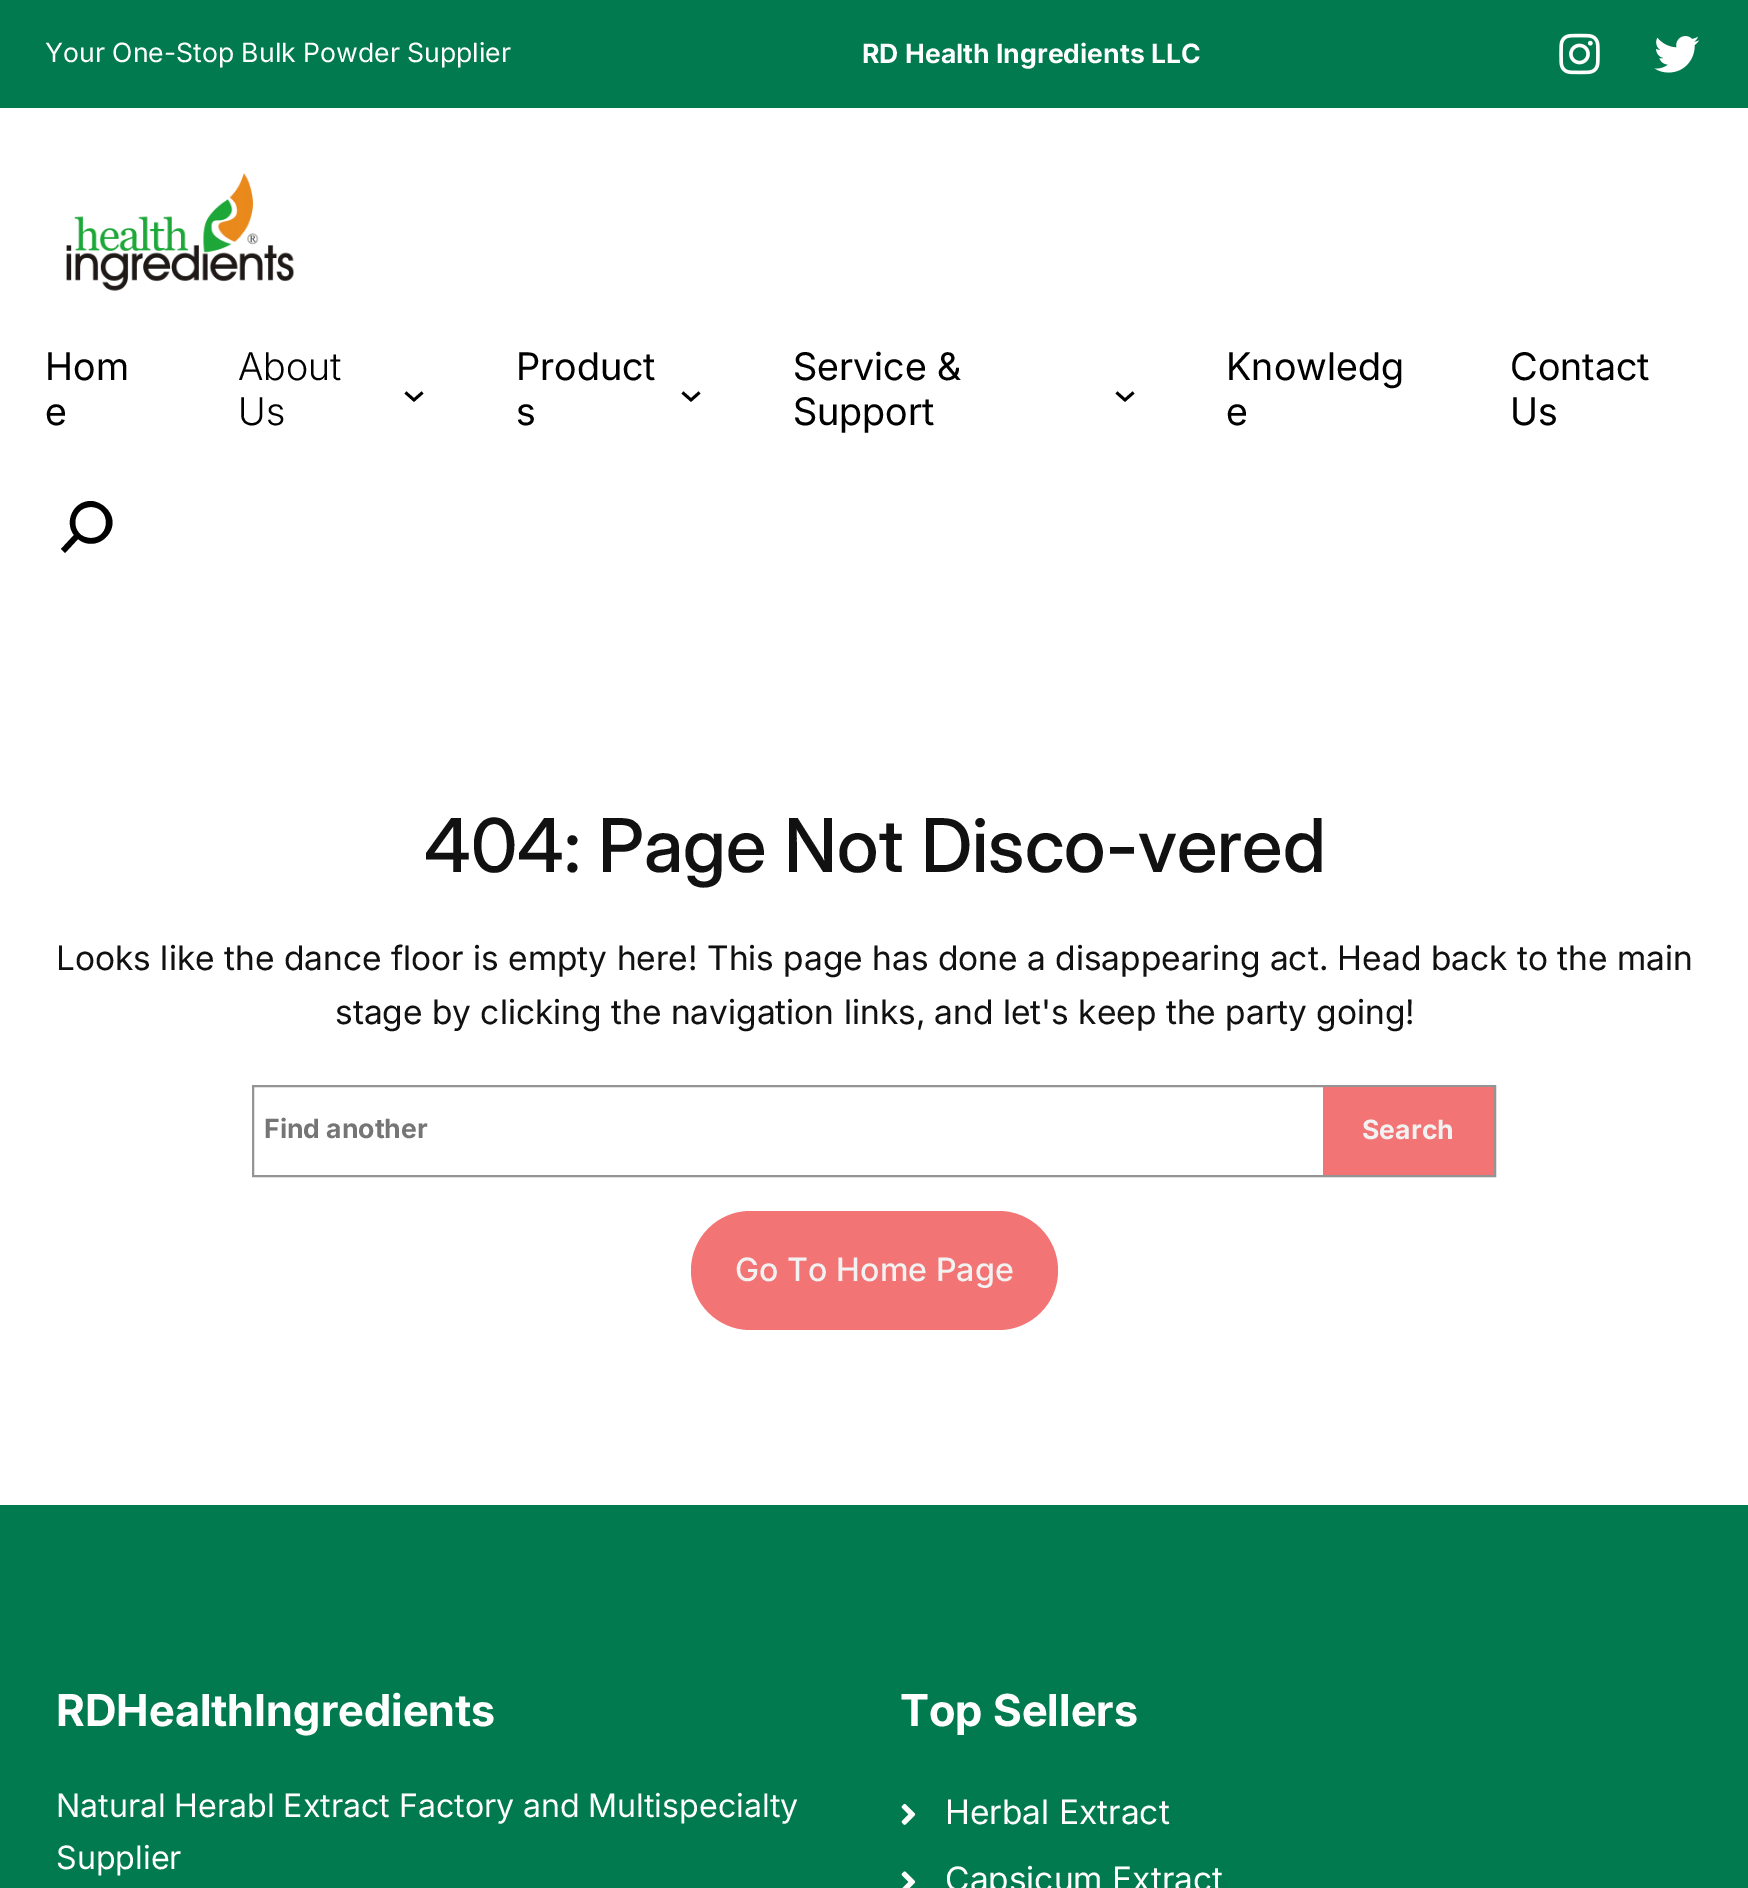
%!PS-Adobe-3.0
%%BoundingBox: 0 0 1748 1888
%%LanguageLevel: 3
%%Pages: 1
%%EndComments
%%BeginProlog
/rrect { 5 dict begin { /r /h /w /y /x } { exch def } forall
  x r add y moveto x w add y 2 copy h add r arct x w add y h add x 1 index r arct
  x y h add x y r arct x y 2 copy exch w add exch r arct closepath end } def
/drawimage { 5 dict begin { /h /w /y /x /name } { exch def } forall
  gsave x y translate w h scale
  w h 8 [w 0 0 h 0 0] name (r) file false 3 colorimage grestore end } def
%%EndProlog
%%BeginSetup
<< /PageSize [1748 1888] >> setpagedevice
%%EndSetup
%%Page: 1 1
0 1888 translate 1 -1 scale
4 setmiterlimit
1 setgray
0 0 1748 1888 rectfill
0.004 0.478 0.314 setrgbcolor
0 0 1748 108 rectfill
(images/1.raw) 1559 33 41 42 drawimage
(images/2.raw) 1654 36 46 37 drawimage
(images/3.raw) 66 173 228 118 drawimage
0 setgray
2.8 setlinewidth
newpath 405.5 392.5 moveto 414 400 lineto 422.5 392.5 lineto stroke
newpath 682.5 392.5 moveto 691 400 lineto 699.5 392.5 lineto stroke
newpath 1116.5 392.5 moveto 1125 400 lineto 1133.5 392.5 lineto stroke
newpath 91 501 moveto 73 501 64 522 74 535 curveto 61 549 lineto 65 553 lineto 78 539 lineto 98 555 125 527 106 508 curveto 102 504 96 501 91 501 curveto closepath 91 538 moveto 70 538 70 507 91 507 curveto 111 507 111 538 91 538 curveto closepath fill
0.58 setgray
2 setlinewidth
253 1086 1242 90 rectstroke
0.949 0.455 0.455 setrgbcolor
1323 1087 171 88 rectfill
691 1211 367 119 59.5 rrect fill
0.004 0.478 0.31 setrgbcolor
0 1505 1748 383 rectfill
(images/4.raw) 901 1803 15 22 drawimage
(images/5.raw) 901 1871 15 17 drawimage
/Inter-Regular [26.6 0 0 -26.6 0 0] selectfont
1 setgray
45 62 moveto (Your One-Stop Bulk Powder Supplier) show
/Inter-Bold [26.6 0 0 -26.6 0 0] selectfont
862 63 moveto (RD Health Ingredients LLC) show
/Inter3-Regular [38 0 0 -38 0 0] selectfont
0 setgray
45 380 moveto (Hom) show
45 425 moveto (e) show
/Inter-Light [38 0 0 -38 0 0] selectfont
238 380 moveto (About) show
238 425 moveto (Us) show
/Inter3-Regular [38 0 0 -38 0 0] selectfont
516 380 moveto (Product) show
516 425 moveto (s) show
793 380 moveto (Service &) show
793 425 moveto (Support) show
1226 380 moveto (Knowledg) show
1226 425 moveto (e) show
1510 380 moveto (Contact) show
1510 425 moveto (Us) show
/Inter-Medium [74.1 0 0 -74.1 0 0] selectfont
0.067 setgray
424 872 moveto (404: Page Not Disco-vered) show
/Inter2-Regular [33.6 0 0 -33.6 0 0] selectfont
56 970 moveto (Looks like the dance floor is empty here! This page has done a disappearing act. Head back to the main) show
335 1024 moveto (stage by clicking the navigation links, and let's keep the party going!) show
/Inter-Bold [26.6 0 0 -26.6 0 0] selectfont
0.459 setgray
264 1138 moveto (Find another) show
0.949 setgray
1362 1139 moveto (Search) show
/Inter2-Medium [32.2 0 0 -32.2 0 0] selectfont
735 1281 moveto (Go To Home Page) show
/Inter2-Bold [44 0 0 -44 0 0] selectfont
1 setgray
56 1726 moveto (RDHealthIngredients) show
/Inter-Regular [32.2 0 0 -32.2 0 0] selectfont
56 1817 moveto -0.5 0 32 (Natural Herabl Extract Factory and Multispecialty) widthshow
56 1869 moveto (Supplier) show
/Inter2-Bold [44 0 0 -44 0 0] selectfont
900 1726 moveto (Top Sellers) show
/Inter2-Regular [33.6 0 0 -33.6 0 0] selectfont
945 1824 moveto (Herbal Extract) show
945 1891 moveto (Capsicum Extract) show
showpage
%%EOF
